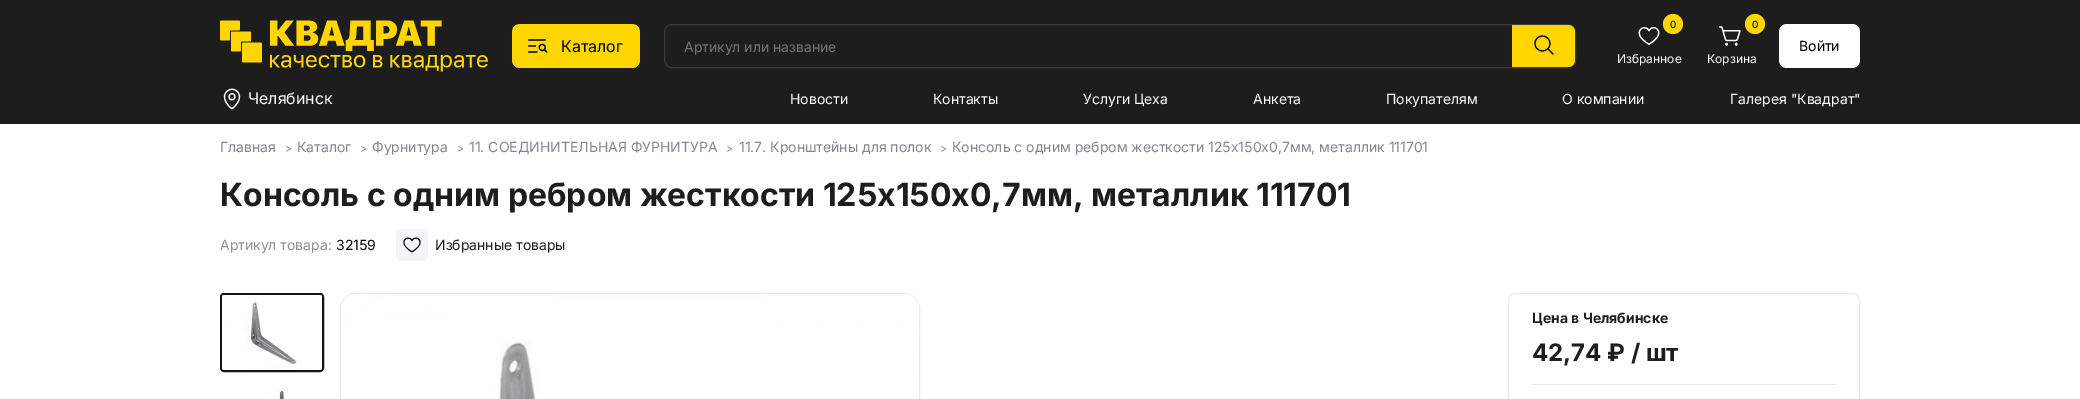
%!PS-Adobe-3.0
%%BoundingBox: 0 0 2080 399
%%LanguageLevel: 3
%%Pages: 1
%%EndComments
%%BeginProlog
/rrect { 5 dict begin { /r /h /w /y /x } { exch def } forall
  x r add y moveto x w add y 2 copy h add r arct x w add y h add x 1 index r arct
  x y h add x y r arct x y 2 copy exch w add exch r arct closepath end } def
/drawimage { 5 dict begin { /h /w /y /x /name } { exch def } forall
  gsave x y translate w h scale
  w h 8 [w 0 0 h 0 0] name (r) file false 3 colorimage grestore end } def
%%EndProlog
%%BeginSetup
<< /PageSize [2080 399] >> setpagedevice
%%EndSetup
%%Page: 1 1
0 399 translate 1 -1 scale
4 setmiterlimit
1 setgray
0 0 2080 399 rectfill
0.114 0.114 0.118 setrgbcolor
0 0 2080 124 rectfill
(images/1.raw) 220 20 268 52 drawimage
1 0.839 0 setrgbcolor
512 24 128 44 8 rrect fill
(images/2.raw) 528 39 20 14 drawimage
0.227 0.227 0.235 setrgbcolor
664.5 24.5 911 43 7.5 rrect stroke
1 0.839 0 setrgbcolor
newpath 1512 25 moveto 1568 25 lineto 1572 25 1575 28 1575 32 curveto 1575 60 lineto 1575 64 1572 67 1568 67 curveto 1512 67 lineto closepath fill
(images/3.raw) 1534 35 20 20 drawimage
newpath 1673 24 10 0 360 arc closepath fill
(images/4.raw) 1638 27 22 18 drawimage
newpath 1755 24 10 0 360 arc closepath fill
(images/5.raw) 1719 26 22 20 drawimage
1 setgray
1779 24 81 44 8 rrect fill
(images/6.raw) 223 88 18 22 drawimage
0.949 0.957 0.973 setrgbcolor
396 229 32 32 6 rrect fill
(images/7.raw) 403 237 18 16 drawimage
0.078 0.078 0.086 setrgbcolor
2 setlinewidth
221 294 102 77 3 rrect stroke
(images/8.raw) 222 295 100 75 drawimage
(images/9.raw) 269 388 15 11 drawimage
0.91 0.918 0.941 setrgbcolor
1 setlinewidth
340.5 293.5 579 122 15.5 rrect stroke
(images/10.raw) 341 294 578 105 drawimage
1508.5 293.5 351 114 7.5 rrect stroke
1532 384 304 1 rectfill
/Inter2-Regular [16 0 0 -16 0 0] selectfont
0 setgray
561 52 moveto (Каталог) show
/Inter-Regular [14 0 0 -14 0 0] selectfont
0.459 setgray
684 52 moveto (Артикул или название) show
/Inter-Regular [10 0 0 -10 0 0] selectfont
0 setgray
1670 28 moveto (0) show
/Inter-Regular [12 0 0 -12 0 0] selectfont
1 setgray
1617 63 moveto (Избранное) show
/Inter-Regular [10 0 0 -10 0 0] selectfont
0 setgray
1752 28 moveto (0) show
/Inter-Regular [12 0 0 -12 0 0] selectfont
1 setgray
1707 63 moveto (Корзина) show
/Inter-Regular [14 0 0 -14 0 0] selectfont
0 setgray
1799 51 moveto (Войти) show
/Inter2-Regular [16 0 0 -16 0 0] selectfont
1 setgray
248 104 moveto (Челябинск) show
/Inter-Regular [14 0 0 -14 0 0] selectfont
790 104 moveto (Новости) show
933 104 moveto (Контакты) show
1083 104 moveto (Услуги Цеха) show
1253 104 moveto (Анкета) show
1386 104 moveto (Покупателям) show
1562 104 moveto (О компании) show
1730 104 moveto (Галерея "Квадрат") show
0.525 0.525 0.592 setrgbcolor
220 152 moveto (Главная) show
/Inter-Regular [11 0 0 -11 0 0] selectfont
285 152 moveto (>) show
/Inter-Regular [14 0 0 -14 0 0] selectfont
297 152 moveto (Каталог) show
/Inter-Regular [11 0 0 -11 0 0] selectfont
360 152 moveto (>) show
/Inter-Regular [14 0 0 -14 0 0] selectfont
372 152 moveto (Фурнитура) show
/Inter-Regular [11 0 0 -11 0 0] selectfont
457 152 moveto (>) show
/Inter-Regular [14 0 0 -14 0 0] selectfont
469 152 moveto (11. СОЕДИНИТЕЛЬНАЯ ФУРНИТУРА) show
/Inter-Regular [11 0 0 -11 0 0] selectfont
726 152 moveto (>) show
/Inter-Regular [14 0 0 -14 0 0] selectfont
739 152 moveto (11.7. Кронштейны для полок) show
/Inter-Regular [11 0 0 -11 0 0] selectfont
940 152 moveto (>) show
/Inter-Regular [14 0 0 -14 0 0] selectfont
952 152 moveto (Консоль с одним ребром жесткости 125х150х0,7мм, металлик 111701) show
/Inter-Bold [32 0 0 -32 0 0] selectfont
0.114 0.114 0.118 setrgbcolor
220 206 moveto (Консоль с одним ребром жесткости 125х150х0,7мм, металлик 111701) show
/Inter-Regular [14 0 0 -14 0 0] selectfont
0.569 0.573 0.588 setrgbcolor
220 250 moveto (Артикул товара:) show
0 setgray
336 250 moveto (32159) show
0.114 0.114 0.118 setrgbcolor
435 250 moveto (Избранные товары) show
/Inter-Bold [14 0 0 -14 0 0] selectfont
1532 323 moveto (Цена в Челябинске) show
/Inter-Bold [24 0 0 -24 0 0] selectfont
1532 361 moveto (42,74 ₽ / шт) show
showpage
%%EOF
